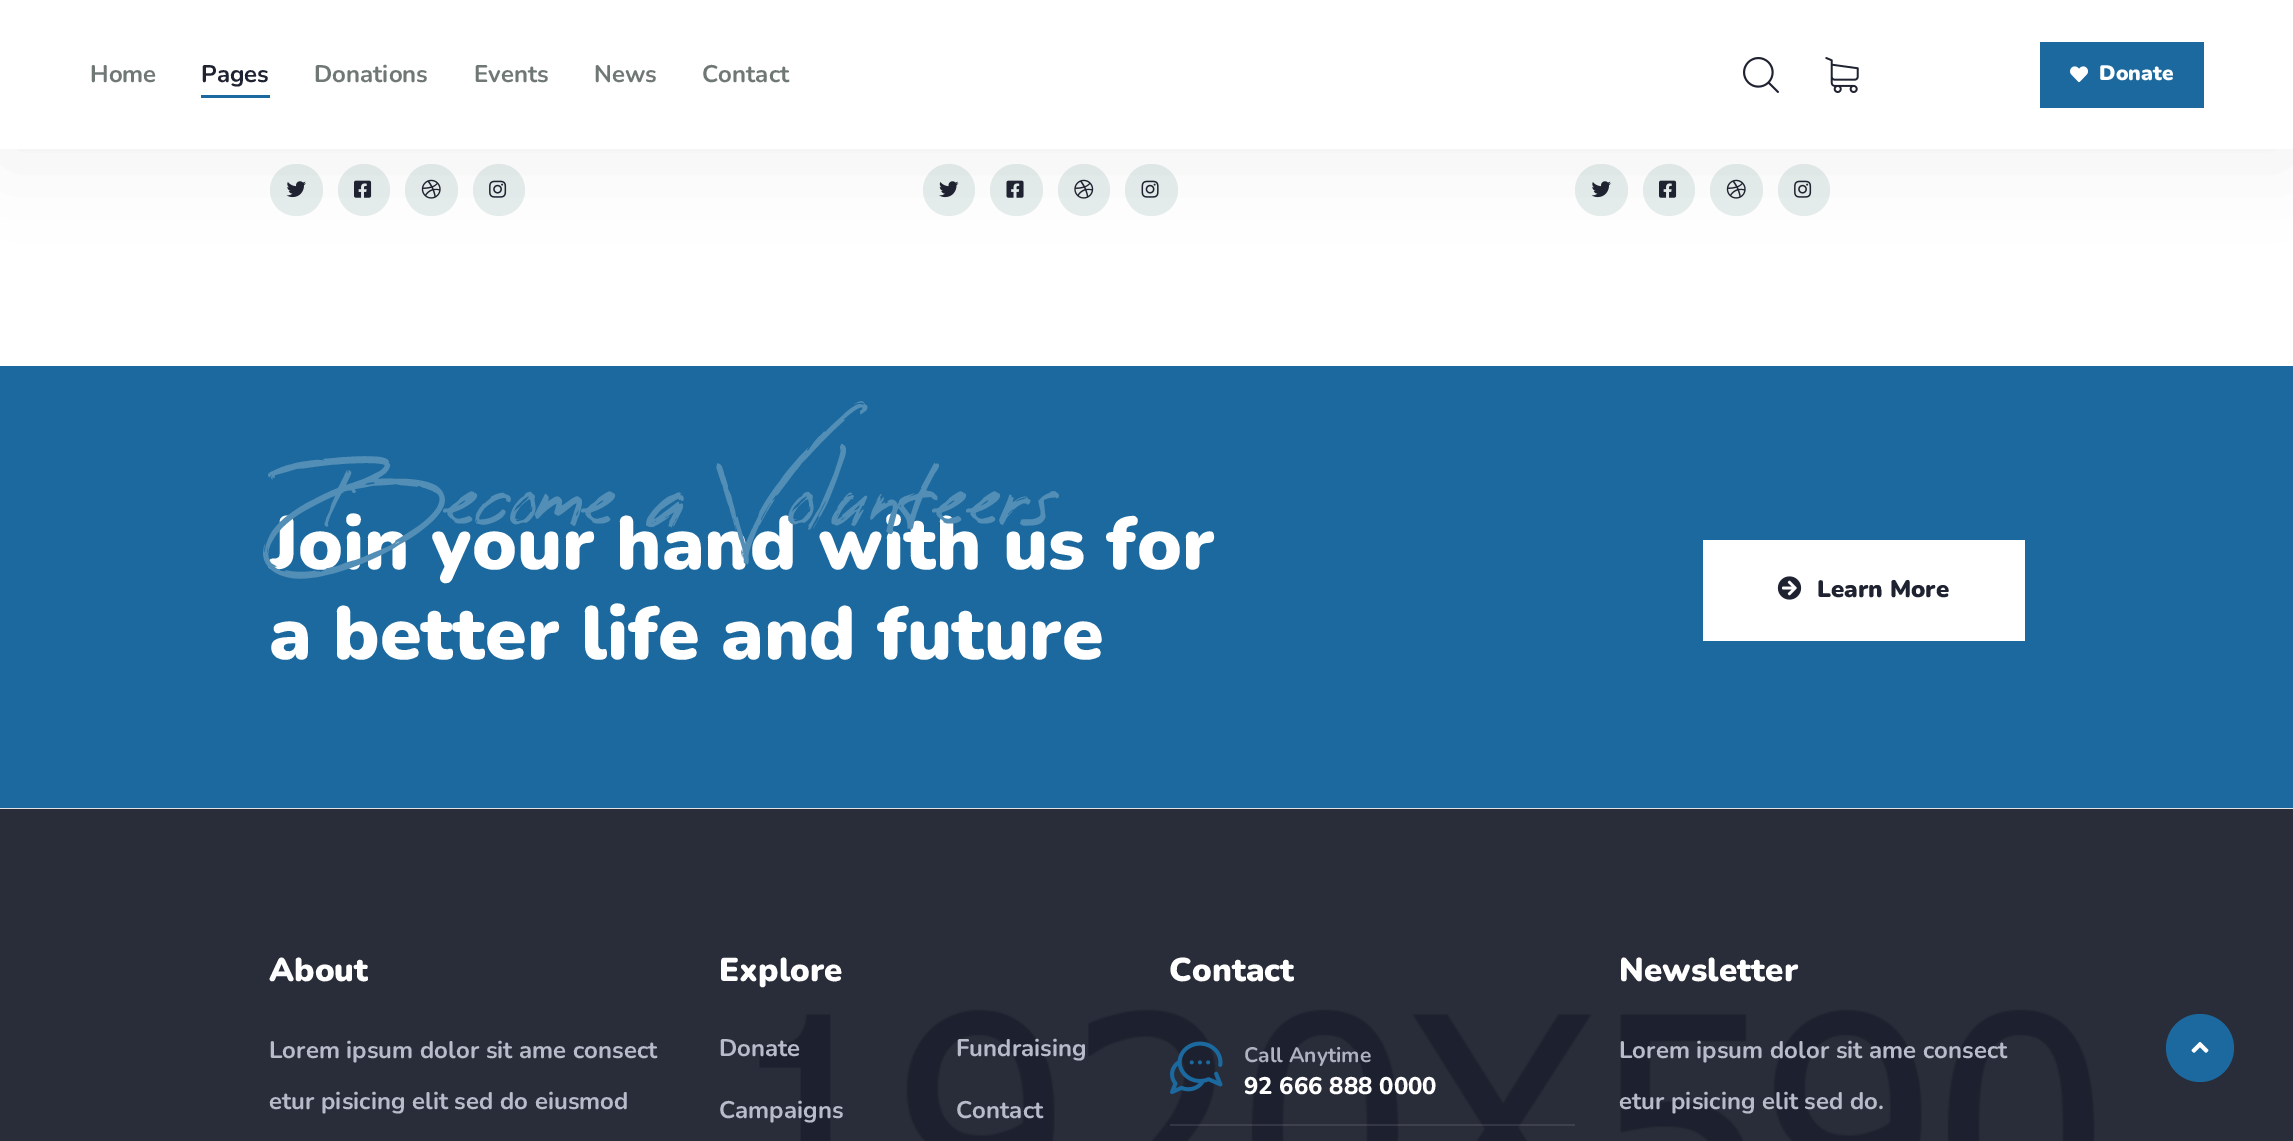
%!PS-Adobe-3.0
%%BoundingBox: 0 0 2293 1141
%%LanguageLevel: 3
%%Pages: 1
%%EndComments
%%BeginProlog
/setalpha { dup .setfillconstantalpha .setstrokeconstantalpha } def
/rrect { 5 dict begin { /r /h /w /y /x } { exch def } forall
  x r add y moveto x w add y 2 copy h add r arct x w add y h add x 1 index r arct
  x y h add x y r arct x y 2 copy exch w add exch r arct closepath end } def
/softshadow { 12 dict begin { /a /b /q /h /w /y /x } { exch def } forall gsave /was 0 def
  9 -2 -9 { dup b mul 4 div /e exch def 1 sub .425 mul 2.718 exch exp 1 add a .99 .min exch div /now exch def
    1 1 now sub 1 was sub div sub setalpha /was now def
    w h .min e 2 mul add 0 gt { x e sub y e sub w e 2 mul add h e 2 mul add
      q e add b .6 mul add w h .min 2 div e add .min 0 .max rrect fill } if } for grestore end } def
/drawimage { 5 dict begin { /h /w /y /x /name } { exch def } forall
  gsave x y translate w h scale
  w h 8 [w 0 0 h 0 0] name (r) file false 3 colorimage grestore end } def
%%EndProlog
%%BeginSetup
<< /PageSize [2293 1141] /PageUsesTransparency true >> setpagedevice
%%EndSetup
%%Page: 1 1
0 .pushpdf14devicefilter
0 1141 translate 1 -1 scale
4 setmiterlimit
1 setgray
0 0 2293 1141 rectfill
0.898 0.933 0.925 setrgbcolor
270 164 53 52 26 rrect fill
(images/4.raw) 286 181 20 17 drawimage
newpath 364 190 26 0 360 arc closepath fill
(images/5.raw) 354 180 18 18 drawimage
405 164 53 52 26 rrect fill
(images/6.raw) 421 179 20 20 drawimage
newpath 499 190 26 0 360 arc closepath fill
(images/7.raw) 489 180 18 18 drawimage
newpath 949 190 26 0 360 arc closepath fill
(images/8.raw) 939 181 20 17 drawimage
990 164 53 52 26 rrect fill
(images/9.raw) 1006 180 18 18 drawimage
newpath 1084 190 26 0 360 arc closepath fill
(images/10.raw) 1074 179 20 20 drawimage
1125 164 53 52 26 rrect fill
(images/11.raw) 1141 180 18 18 drawimage
1575 164 53 52 26 rrect fill
(images/4.raw) 1591 181 20 17 drawimage
newpath 1669 190 26 0 360 arc closepath fill
(images/5.raw) 1659 180 18 18 drawimage
1710 164 53 52 26 rrect fill
(images/6.raw) 1726 179 20 20 drawimage
newpath 1804 190 26 0 360 arc closepath fill
(images/7.raw) 1794 180 18 18 drawimage
0 setgray
0 15 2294 149 0 45 0.05 softshadow
1 setgray
0 0 2293 149 rectfill
0.106 0.412 0.62 setrgbcolor
201 95 69 3 rectfill
(images/1.raw) 1743 57 36 36 drawimage
(images/2.raw) 1825 57 34 36 drawimage
2040 42 164 66 rectfill
(images/3.raw) 2070 66 18 17 drawimage
0 366 2293 442 rectfill
1 setgray
1703 540 322 101 rectfill
(images/12.raw) 1777 576 25 24 drawimage
(images/13.raw) 0 808 2293 333 drawimage
0.1 setalpha
1170 1124 405 2 rectfill
1 setalpha
(images/14.raw) 1170 1041 53 53 drawimage
0.106 0.412 0.62 setrgbcolor
newpath 2200 1048 34 0 360 arc closepath fill
(images/15.raw) 2191 1042 18 11 drawimage
/Nunito-Bold [24 0 0 -24 0 0] selectfont
0.439 0.471 0.463 setrgbcolor
90 82 moveto (Home) show
0.122 0.133 0.188 setrgbcolor
201 82 moveto (Pages) show
0.439 0.471 0.463 setrgbcolor
314 82 moveto (Donations) show
474 82 moveto (Events) show
594 82 moveto (News) show
702 82 moveto (Contact) show
/Nunito-Black [21 0 0 -21 0 0] selectfont
1 setgray
2099 80 moveto (Donate) show
/Nunito-Black [75 0 0 -75 0 0] selectfont
269 569 moveto (Join your hand with us for) show
/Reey-Regular [75 0 0 -75 0 0] selectfont
0.325 0.557 0.714 setrgbcolor
269 528 moveto (Become a Volunteers) show
/Nunito-Black [75 0 0 -75 0 0] selectfont
1 setgray
269 659 moveto (a better life and future) show
/Nunito-Black [24 0 0 -24 0 0] selectfont
0.122 0.133 0.188 setrgbcolor
1817 597 moveto (Learn More) show
/Nunito-Black [33 0 0 -33 0 0] selectfont
1 setgray
269 981 moveto (About) show
/Nunito-Bold [24 0 0 -24 0 0] selectfont
0.722 0.733 0.788 setrgbcolor
269 1058 moveto (Lorem ipsum dolor sit ame consect) show
269 1109 moveto (etur pisicing elit sed do eiusmod) show
/Nunito-Black [33 0 0 -33 0 0] selectfont
1 setgray
719 981 moveto (Explore) show
/Nunito-Bold [24 0 0 -24 0 0] selectfont
0.722 0.733 0.788 setrgbcolor
719 1056 moveto (Donate) show
719 1118 moveto (Campaigns) show
956 1056 moveto (Fundraising) show
956 1118 moveto (Contact) show
/Nunito-Black [33 0 0 -33 0 0] selectfont
1 setgray
1169 981 moveto (Contact) show
/Nunito-Bold [21 0 0 -21 0 0] selectfont
0.686 0.698 0.753 setrgbcolor
1244 1062 moveto (Call Anytime) show
/Nunito-ExtraBold [24 0 0 -24 0 0] selectfont
1 setgray
1244 1094 moveto (92 666 888 0000) show
/Nunito-Black [33 0 0 -33 0 0] selectfont
1619 981 moveto (Newsletter) show
/Nunito-Bold [24 0 0 -24 0 0] selectfont
0.722 0.733 0.788 setrgbcolor
1619 1058 moveto (Lorem ipsum dolor sit ame consect) show
1619 1109 moveto (etur pisicing elit sed do.) show
.poppdf14devicefilter showpage
%%EOF
